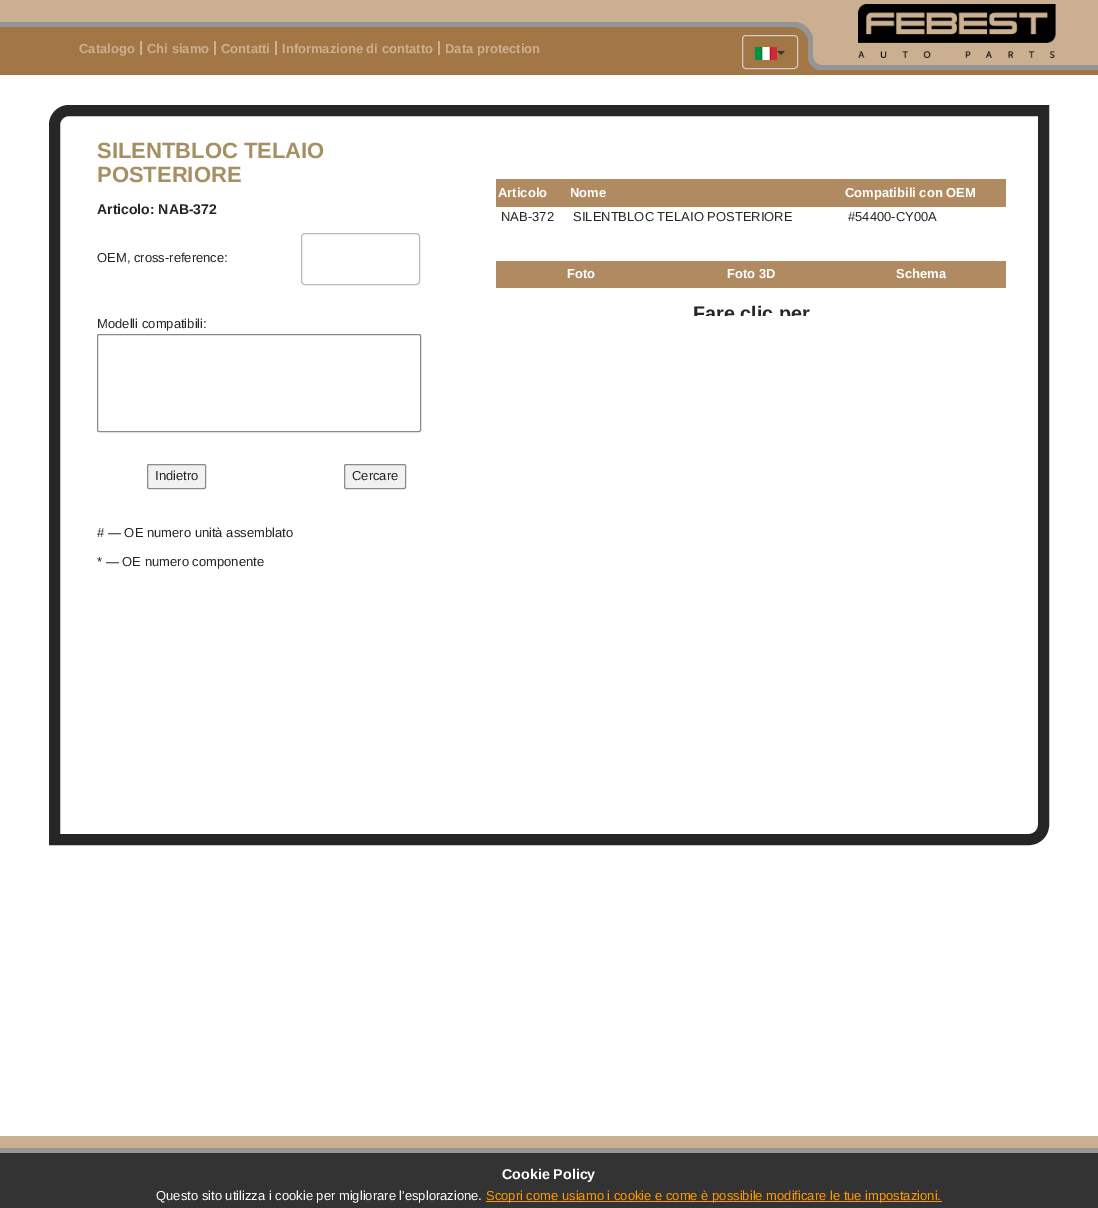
%!PS-Adobe-3.0
%%BoundingBox: 0 0 1098 1208
%%LanguageLevel: 3
%%Pages: 1
%%EndComments
%%BeginProlog
/rrect { 5 dict begin { /r /h /w /y /x } { exch def } forall
  x r add y moveto x w add y 2 copy h add r arct x w add y h add x 1 index r arct
  x y h add x y r arct x y 2 copy exch w add exch r arct closepath end } def
/drawimage { 5 dict begin { /h /w /y /x /name } { exch def } forall
  gsave x y translate w h scale
  w h 8 [w 0 0 h 0 0] name (r) file false 3 colorimage grestore end } def
%%EndProlog
%%BeginSetup
<< /PageSize [1098 1208] >> setpagedevice
%%EndSetup
%%Page: 1 1
0 1208 translate 1 -1 scale
4 setmiterlimit
1 setgray
0 0 1098 1208 rectfill
0.635 0.467 0.271 setrgbcolor
0 57 1098 18 rectfill
0.792 0.686 0.569 setrgbcolor
0 0 1098 57 rectfill
0.635 0.467 0.271 setrgbcolor
newpath 0 22 moveto 793 22 lineto 804 22 813 31 813 42 curveto 813 56 lineto 0 56 lineto closepath fill
0.576 0.584 0.596 setrgbcolor
newpath 0 22 moveto 793 22 lineto 804 22 813 31 813 42 curveto 813 56 lineto 0 56 lineto closepath 0 27 moveto 793 27 lineto 801 27 808 34 808 42 curveto 808 56 lineto 0 56 lineto closepath eofill
0.635 0.467 0.271 setrgbcolor
0 38 808 19 rectfill
0.792 0.686 0.569 setrgbcolor
140 41 2 14 rectfill
214 41 2 14 rectfill
275 41 2 14 rectfill
438 41 2 14 rectfill
newpath 808 56 moveto 1098 56 lineto 1098 70 lineto 822 70 lineto 814.5 70 808 63.5 808 56 curveto closepath fill
0.576 0.584 0.596 setrgbcolor
newpath 808 56 moveto 1098 56 lineto 1098 70 lineto 822 70 lineto 814 70 808 64 808 56 curveto closepath 813 56 moveto 1098 56 lineto 1098 65 lineto 822 65 lineto 817 65 813 61 813 56 curveto closepath eofill
(images/1.raw) 858 4 198 54 drawimage
0.8 setgray
742.5 35.5 55 33 3.5 rrect stroke
(images/2.raw) 755 47 22 13 drawimage
0.2 setgray
newpath 777 51 moveto 785 51 lineto 781 55 lineto closepath fill
0.149 setgray
11 setlinewidth
newpath 69 110.5 moveto 1043.5 110.5 lineto 1043.5 825 lineto 1043.5 833 1037 839.5 1029 839.5 curveto 54.5 839.5 lineto 54.5 125 lineto 54.5 117 61 110.5 69 110.5 curveto closepath stroke
0.729 setgray
1 setlinewidth
301.5 233.5 118 51 3.5 rrect stroke
0.545 setgray
97.5 334.5 323 97 1.5 rrect stroke
0.945 setgray
147.5 464.5 58 24 1.5 rrect gsave fill grestore
0.545 setgray
stroke
0.945 setgray
344.5 464.5 61 24 1.5 rrect gsave fill grestore
0.545 setgray
stroke
0.69 0.545 0.38 setrgbcolor
496 179 510 28 rectfill
496 261 510 27 rectfill
0.792 0.686 0.569 setrgbcolor
0 1136 1098 12 rectfill
0.576 0.584 0.596 setrgbcolor
0 1148 1098 5 rectfill
0.2 setgray
0 1153 1098 55 rectfill
1 0.6 0 setrgbcolor
486 1201 456 1 rectfill
/LiberationSans-Bold [13 0 0 -13 0 0] selectfont
0.792 0.686 0.569 setrgbcolor
79 53 moveto (Catalogo) show
147 53 moveto (Chi siamo) show
221 53 moveto (Contatti) show
282 53 moveto (Informazione di contatto) show
445 53 moveto (Data protection) show
/LiberationSans-Bold [22 0 0 -22 0 0] selectfont
0.651 0.561 0.384 setrgbcolor
97 158 moveto (SILENTBLOC TELAIO) show
97 182 moveto (POSTERIORE) show
/LiberationSans-Bold [14 0 0 -14 0 0] selectfont
0.149 setgray
97 214 moveto (Articolo: NAB-372) show
/LiberationSans-Regular [13 0 0 -13 0 0] selectfont
97 262 moveto (OEM, cross-reference:) show
97 328 moveto (Modelli compatibili:) show
155 480 moveto (Indietro) show
352 480 moveto (Cercare) show
97 537 moveto (# — OE numero unità assemblato) show
97 566 moveto (* — OE numero componente) show
/LiberationSans-Bold [13 0 0 -13 0 0] selectfont
1 setgray
498 197 moveto (Articolo) show
570 197 moveto (Nome) show
845 197 moveto (Compatibili con OEM) show
/LiberationSans-Regular [13 0 0 -13 0 0] selectfont
0.149 setgray
501 221 moveto (NAB-372) show
573 221 moveto (SILENTBLOC TELAIO POSTERIORE) show
848 221 moveto (#54400-CY00A) show
/LiberationSans-Bold [13 0 0 -13 0 0] selectfont
1 setgray
567 278 moveto (Foto) show
727 278 moveto (Foto 3D) show
896 278 moveto (Schema) show
gsave
666 298 170 18 rectclip
/LiberationSans-Bold [19.75 0 0 -19.75 0 0] selectfont
0.149 setgray
693 320 moveto (Fare clic per) show
grestore
/LiberationSans-Bold [14.25 0 0 -14.25 0 0] selectfont
502 1179 moveto (Cookie Policy) show
/LiberationSans-Regular [13 0 0 -13 0 0] selectfont
156 1200 moveto (Questo sito utilizza i cookie per migliorare l'esplorazione.) show
1 0.6 0 setrgbcolor
486 1200 moveto (Scopri come usiamo i cookie e come è possibile modificare le tue impostazioni.) show
showpage
%%EOF
